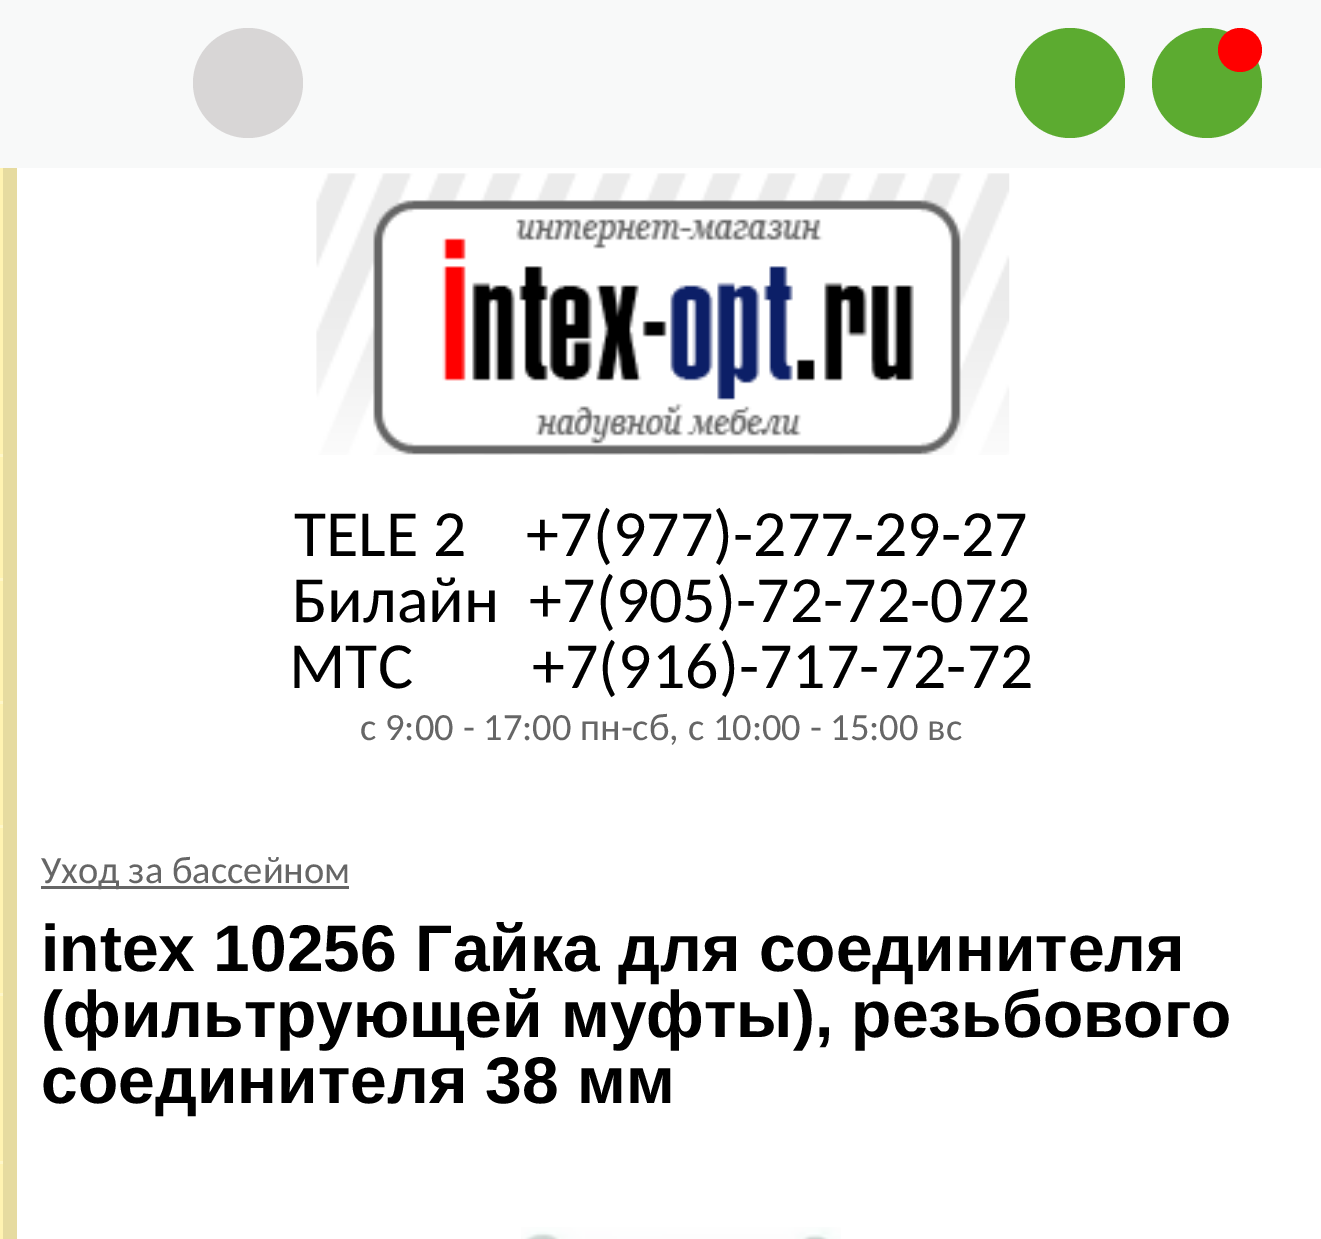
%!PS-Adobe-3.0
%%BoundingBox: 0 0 1321 1239
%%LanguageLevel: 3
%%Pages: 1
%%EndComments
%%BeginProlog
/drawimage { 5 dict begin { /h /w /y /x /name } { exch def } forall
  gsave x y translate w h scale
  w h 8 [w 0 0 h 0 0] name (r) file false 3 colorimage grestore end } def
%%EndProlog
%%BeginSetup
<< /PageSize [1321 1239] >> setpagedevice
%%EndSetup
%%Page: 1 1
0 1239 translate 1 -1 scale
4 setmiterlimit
1 setgray
0 0 1321 1239 rectfill
1 0.953 0.698 setrgbcolor
0 168 3 1071 rectfill
0.902 0.859 0.627 setrgbcolor
3 168 14 1071 rectfill
1 0.969 0.788 setrgbcolor
0 454 3 3 rectfill
0 578 3 3 rectfill
0 701 3 3 rectfill
0 825 3 3 rectfill
0 993 3 3 rectfill
0 1161 3 3 rectfill
0.973 0.976 0.976 setrgbcolor
0 0 1321 168 rectfill
0.847 0.839 0.839 setrgbcolor
newpath 248 83 55 0 360 arc closepath fill
0.361 0.671 0.188 setrgbcolor
newpath 1070 83 55 0 360 arc closepath fill
newpath 1207 83 55 0 360 arc closepath fill
1 0 0 setrgbcolor
newpath 1240 50 22 0 360 arc closepath fill
(images/1.raw) 316 173 694 282 drawimage
0.4 setgray
41 886 308 3 rectfill
(images/2.raw) 521 1227 320 12 drawimage
/Carlito-Regular [66 0 0 -66 0 0] selectfont
0 setgray
294 556 moveto (TELE 2    +7\(977\)-277-29-27) show
292 622 moveto (Билайн  +7\(905\)-72-72-072) show
289 688 moveto (МТС        +7\(916\)-717-72-72) show
/Carlito-Regular [38.5 0 0 -38.5 0 0] selectfont
0.4 setgray
360 740 moveto (с 9:00 - 17:00 пн-сб, с 10:00 - 15:00 вс) show
41 883 moveto (Уход за бассейном) show
/LiberationSans-Bold [66 0 0 -66 0 0] selectfont
0 setgray
41 971 moveto (intex 10256 Гайка для соединителя) show
41 1037 moveto (\(фильтрующей муфты\), резьбового) show
41 1103 moveto (соединителя 38 мм) show
showpage
%%EOF
